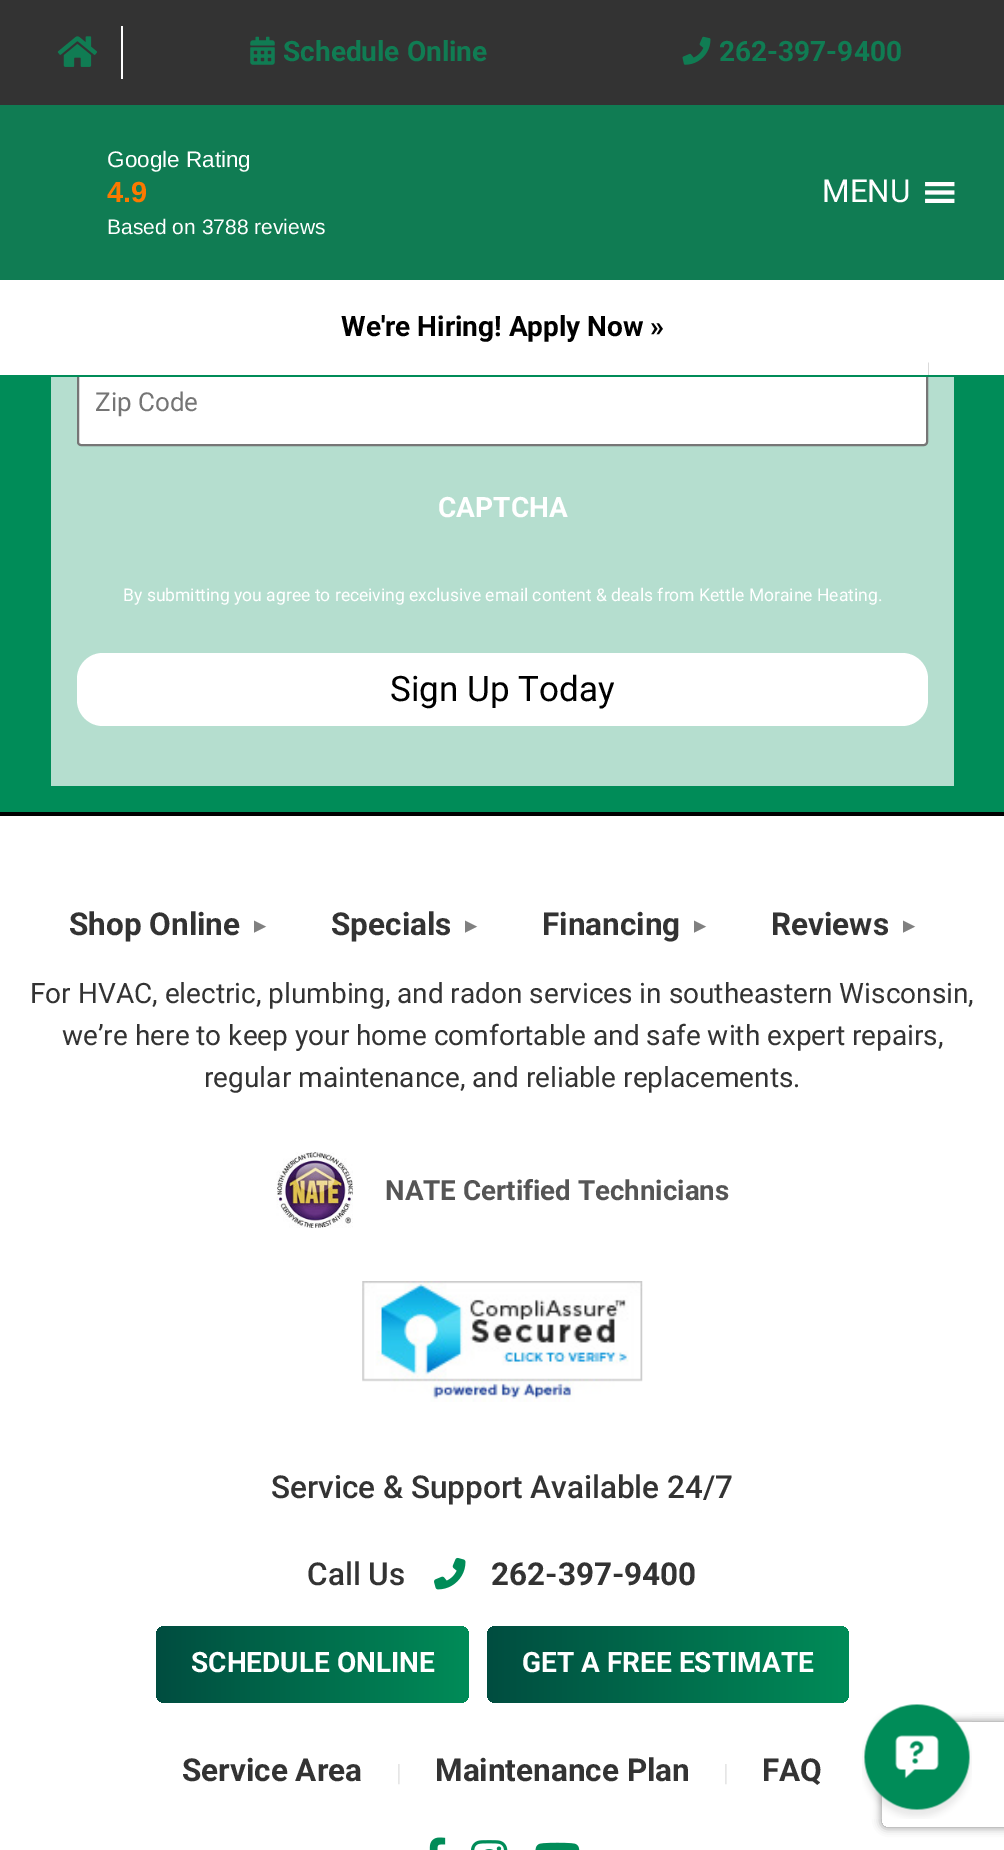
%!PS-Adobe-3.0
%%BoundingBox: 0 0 1004 1850
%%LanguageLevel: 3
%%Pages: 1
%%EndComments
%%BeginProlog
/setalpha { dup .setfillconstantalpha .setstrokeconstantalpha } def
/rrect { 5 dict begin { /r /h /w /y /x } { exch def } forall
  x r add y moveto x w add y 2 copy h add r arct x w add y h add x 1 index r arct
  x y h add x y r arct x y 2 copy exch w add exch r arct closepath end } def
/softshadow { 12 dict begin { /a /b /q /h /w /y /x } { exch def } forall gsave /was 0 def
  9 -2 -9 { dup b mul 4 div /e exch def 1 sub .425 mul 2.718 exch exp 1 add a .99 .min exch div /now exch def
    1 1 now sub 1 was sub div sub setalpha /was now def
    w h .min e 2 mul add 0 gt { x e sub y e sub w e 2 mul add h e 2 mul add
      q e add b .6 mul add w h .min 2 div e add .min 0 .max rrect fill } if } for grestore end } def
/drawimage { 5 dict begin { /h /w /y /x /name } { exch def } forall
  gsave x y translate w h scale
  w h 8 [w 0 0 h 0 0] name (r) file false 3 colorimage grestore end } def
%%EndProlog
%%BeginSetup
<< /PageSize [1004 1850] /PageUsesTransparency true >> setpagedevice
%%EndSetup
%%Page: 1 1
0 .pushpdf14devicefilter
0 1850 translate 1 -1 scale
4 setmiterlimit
1 setgray
0 0 1004 1850 rectfill
0.2 setgray
0 0 1004 105 rectfill
1 setgray
121 26 2 53 rectfill
(images/1.raw) 57 36 40 31 drawimage
(images/2.raw) 250 36 25 29 drawimage
(images/3.raw) 682 36 29 29 drawimage
0.063 0.486 0.325 setrgbcolor
0 105 1004 175 rectfill
(images/4.raw) 925 182 30 21 drawimage
0 0.549 0.345 setrgbcolor
0 377 1004 435 rectfill
0.71 0.871 0.812 setrgbcolor
51 377 903 409 rectfill
1 setgray
78 360 849 85 3 rrect gsave fill grestore
0.463 setgray
2 setlinewidth
stroke
1 setgray
77 359 851 16 rectfill
0 0.549 0.345 setrgbcolor
0 375 1004 2 rectfill
gsave
newpath 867 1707 moveto 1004 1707 lineto 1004 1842 lineto 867 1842 lineto closepath 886 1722 moveto 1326 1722 lineto 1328 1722 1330 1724 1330 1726 curveto 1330 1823 lineto 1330 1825 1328 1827 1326 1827 curveto 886 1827 lineto 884 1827 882 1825 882 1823 curveto 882 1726 lineto 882 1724 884 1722 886 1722 curveto closepath eoclip newpath
0.502 setgray
882 1722 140 105 4 4.5 1 softshadow
grestore
1 setgray
77 653 851 73 26 rrect fill
0 setgray
0 812 1004 4 rectfill
(images/5.raw) 276 1152 77 76 drawimage
(images/6.raw) 362 1281 281 121 drawimage
(images/7.raw) 434 1557 32 33 drawimage
gsave 156 1626 313 77 9 rrect clip newpath
<< /ShadingType 2 /ColorSpace /DeviceRGB /Coords [156 1664 469 1664] /Extend [true true] /Function << /FunctionType 2 /Domain [0 1] /C0 [0 0.302 0.251] /C1 [0 0.549 0.345] /N 1 >> >> shfill grestore
gsave 487 1626 362 77 9 rrect clip newpath
<< /ShadingType 2 /ColorSpace /DeviceRGB /Coords [487 1664 849 1664] /Extend [true true] /Function << /FunctionType 2 /Domain [0 1] /C0 [0 0.302 0.251] /C1 [0 0.549 0.345] /N 1 >> >> shfill grestore
(images/8.raw) 429 1837 17 13 drawimage
(images/9.raw) 471 1840 37 10 drawimage
(images/10.raw) 535 1842 45 8 drawimage
(images/11.raw) 862 1704 110 115 drawimage
/Roboto-Bold [28 0 0 -28 0 0] selectfont
0.063 0.486 0.325 setrgbcolor
283 61 moveto (Schedule Online) show
719 61 moveto (262-397-9400) show
/LiberationSans-Regular [22.5 0 0 -22.5 0 0] selectfont
1 setgray
107 167 moveto (Google Rating) show
/LiberationSans-Bold [29 0 0 -29 0 0] selectfont
0.984 0.475 0 setrgbcolor
107 202 moveto (4.9) show
/LiberationSans-Regular [21 0 0 -21 0 0] selectfont
1 setgray
107 234 moveto (Based on 3788 reviews) show
/Roboto-Regular [31.5 0 0 -31.5 0 0] selectfont
822 202 moveto (MENU) show
/Roboto-Bold [28 0 0 -28 0 0] selectfont
0 setgray
341 336 moveto (We're Hiring! Apply Now ») show
/Roboto-Regular [26 0 0 -26 0 0] selectfont
0.459 setgray
95 411 moveto (Zip Code) show
/Roboto-Bold [28 0 0 -28 0 0] selectfont
1 setgray
438 517 moveto (CAPTCHA) show
/Roboto-Regular [17.5 0 0 -17.5 0 0] selectfont
123 601 moveto (By submitting you agree to receiving exclusive email content & deals from Kettle Moraine Heating.) show
/Roboto-Regular [35 0 0 -35 0 0] selectfont
0 setgray
390 701 moveto (Sign Up Today) show
/Roboto-Bold [31.5 0 0 -31.5 0 0] selectfont
0.2 setgray
69 935 moveto (Shop Online) show
/LiberationSans-Regular [21 0 0 -21 0 0] selectfont
0.502 setgray
gsave 266 937 translate -90 rotate 0 0 moveto (▼) show grestore
/Roboto-Bold [31.5 0 0 -31.5 0 0] selectfont
0.2 setgray
331 935 moveto (Specials) show
/LiberationSans-Regular [21 0 0 -21 0 0] selectfont
0.502 setgray
gsave 477 937 translate -90 rotate 0 0 moveto (▼) show grestore
/Roboto-Bold [31.5 0 0 -31.5 0 0] selectfont
0.2 setgray
542 935 moveto (Financing) show
/LiberationSans-Regular [21 0 0 -21 0 0] selectfont
0.502 setgray
gsave 706 937 translate -90 rotate 0 0 moveto (▼) show grestore
/Roboto-Bold [31.5 0 0 -31.5 0 0] selectfont
0.2 setgray
771 935 moveto (Reviews) show
/LiberationSans-Regular [21 0 0 -21 0 0] selectfont
0.502 setgray
gsave 915 937 translate -90 rotate 0 0 moveto (▼) show grestore
/Roboto-Regular [28 0 0 -28 0 0] selectfont
0.2 setgray
30 1003 moveto (For HVAC, electric, plumbing, and radon services in southeastern Wisconsin,) show
62 1045 moveto (we’re here to keep your home comfortable and safe with expert repairs,) show
204 1087 moveto (regular maintenance, and reliable replacements.) show
/Roboto-Bold [27.75 0 0 -27.75 0 0] selectfont
0.333 setgray
385 1200 moveto (NATE Certified Technicians) show
/Roboto-Medium [31.5 0 0 -31.5 0 0] selectfont
0.2 setgray
271 1498 moveto (Service & Support Available 24/7) show
307 1585 moveto (Call Us) show
/Roboto-Bold [31.5 0 0 -31.5 0 0] selectfont
491 1585 moveto (262-397-9400) show
/Roboto-Bold [28 0 0 -28 0 0] selectfont
1 setgray
191 1672 moveto (SCHEDULE ONLINE) show
522 1672 moveto (GET A FREE ESTIMATE) show
/Roboto-Bold [31.5 0 0 -31.5 0 0] selectfont
0.2 setgray
182 1781 moveto (Service Area) show
/Roboto-Regular [24 0 0 -24 0 0] selectfont
0.902 setgray
396 1781 moveto (|) show
/Roboto-Bold [31.5 0 0 -31.5 0 0] selectfont
0.2 setgray
435 1781 moveto (Maintenance Plan) show
/Roboto-Regular [24 0 0 -24 0 0] selectfont
0.902 setgray
723 1781 moveto (|) show
/Roboto-Bold [31.5 0 0 -31.5 0 0] selectfont
0.2 setgray
762 1781 moveto (FAQ) show
.poppdf14devicefilter showpage
%%EOF
